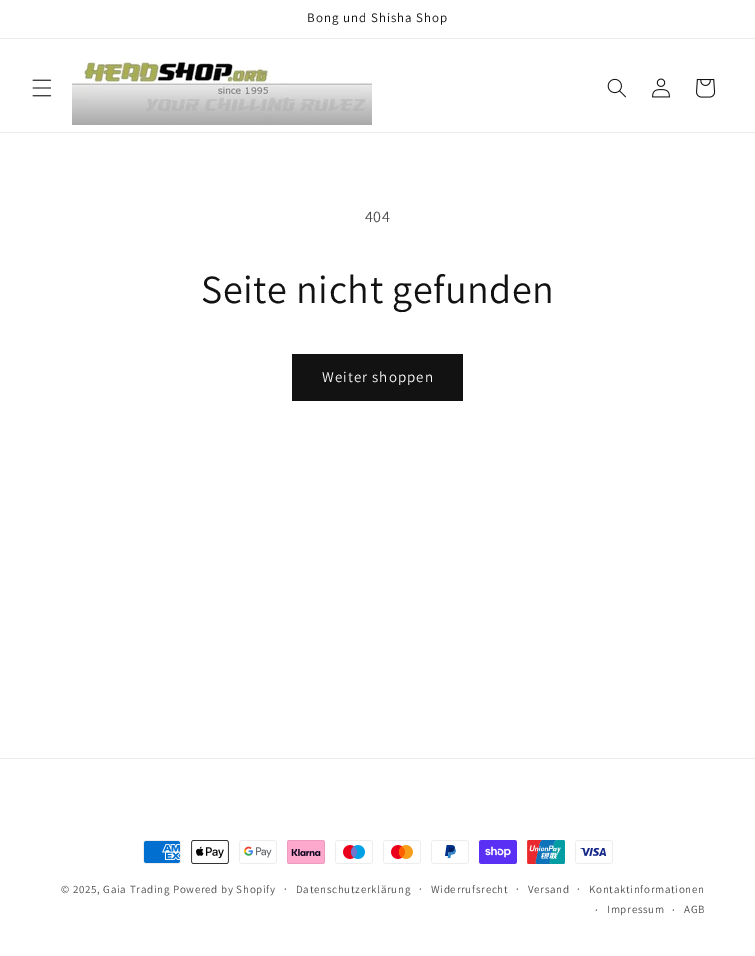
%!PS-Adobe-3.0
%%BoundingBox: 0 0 755 956
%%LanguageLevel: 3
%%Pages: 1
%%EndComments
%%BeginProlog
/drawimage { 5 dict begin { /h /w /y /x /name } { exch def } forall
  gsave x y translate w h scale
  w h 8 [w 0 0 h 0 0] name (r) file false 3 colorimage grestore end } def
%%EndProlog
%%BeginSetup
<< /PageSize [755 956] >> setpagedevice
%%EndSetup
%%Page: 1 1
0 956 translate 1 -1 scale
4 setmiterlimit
1 setgray
0 0 755 956 rectfill
0.925 setgray
0 38 755 1 rectfill
0 132 755 1 rectfill
(images/1.raw) 32 79 20 18 drawimage
(images/2.raw) 72 59 300 66 drawimage
(images/3.raw) 607 78 19 20 drawimage
(images/4.raw) 652 78 18 20 drawimage
(images/5.raw) 696 79 20 19 drawimage
0.071 setgray
292 354 171 47 rectfill
0.925 setgray
0 758 755 1 rectfill
(images/6.raw) 143 840 38 24 drawimage
(images/7.raw) 191 840 38 24 drawimage
(images/8.raw) 239 840 38 24 drawimage
(images/9.raw) 287 840 38 24 drawimage
(images/10.raw) 335 840 38 24 drawimage
(images/11.raw) 383 840 38 24 drawimage
(images/12.raw) 431 840 38 24 drawimage
(images/13.raw) 479 840 38 24 drawimage
(images/14.raw) 527 840 38 24 drawimage
(images/15.raw) 575 840 38 24 drawimage
/Assistant-Regular [13 0 0 -13 0 0] selectfont
0.071 setgray
307 22 moveto 1 0 (Bong und Shisha Shop) ashow
/Assistant-Regular [16 0 0 -16 0 0] selectfont
0.302 setgray
365 222 moveto 0.6 0 (404) ashow
/Assistant-Regular [40 0 0 -40 0 0] selectfont
0.071 setgray
201 303 moveto 0.6 0 (Seite nicht gefunden) ashow
/Assistant-Regular [15 0 0 -15 0 0] selectfont
1 setgray
322 382 moveto 1 0 (Weiter shoppen) ashow
/Assistant-Regular [11 0 0 -11 0 0] selectfont
0.302 setgray
61 893 moveto 0.7 0 (© 2025, Gaia Trading Powered by Shopify) ashow
/Assistant-Regular [12 0 0 -12 0 0] selectfont
284 893 moveto 0.7 0 (·) ashow
/Assistant-Regular [11 0 0 -11 0 0] selectfont
296 893 moveto 0.7 0 (Datenschutzerklärung) ashow
/Assistant-Regular [12 0 0 -12 0 0] selectfont
419 893 moveto 0.7 0 (·) ashow
/Assistant-Regular [11 0 0 -11 0 0] selectfont
431 893 moveto 0.7 0 (Widerrufsrecht) ashow
/Assistant-Regular [12 0 0 -12 0 0] selectfont
516 893 moveto 0.7 0 (·) ashow
/Assistant-Regular [11 0 0 -11 0 0] selectfont
528 893 moveto 0.7 0 (Versand) ashow
/Assistant-Regular [12 0 0 -12 0 0] selectfont
577 893 moveto 0.7 0 (·) ashow
/Assistant-Regular [11 0 0 -11 0 0] selectfont
589 893 moveto 0.7 0 (Kontaktinformationen) ashow
/Assistant-Regular [12 0 0 -12 0 0] selectfont
595 914 moveto 0.7 0 (·) ashow
/Assistant-Regular [11 0 0 -11 0 0] selectfont
607 913 moveto 0.7 0 (Impressum) ashow
/Assistant-Regular [12 0 0 -12 0 0] selectfont
672 914 moveto 0.7 0 (·) ashow
/Assistant-Regular [11 0 0 -11 0 0] selectfont
684 913 moveto 0.7 0 (AGB) ashow
showpage
%%EOF
